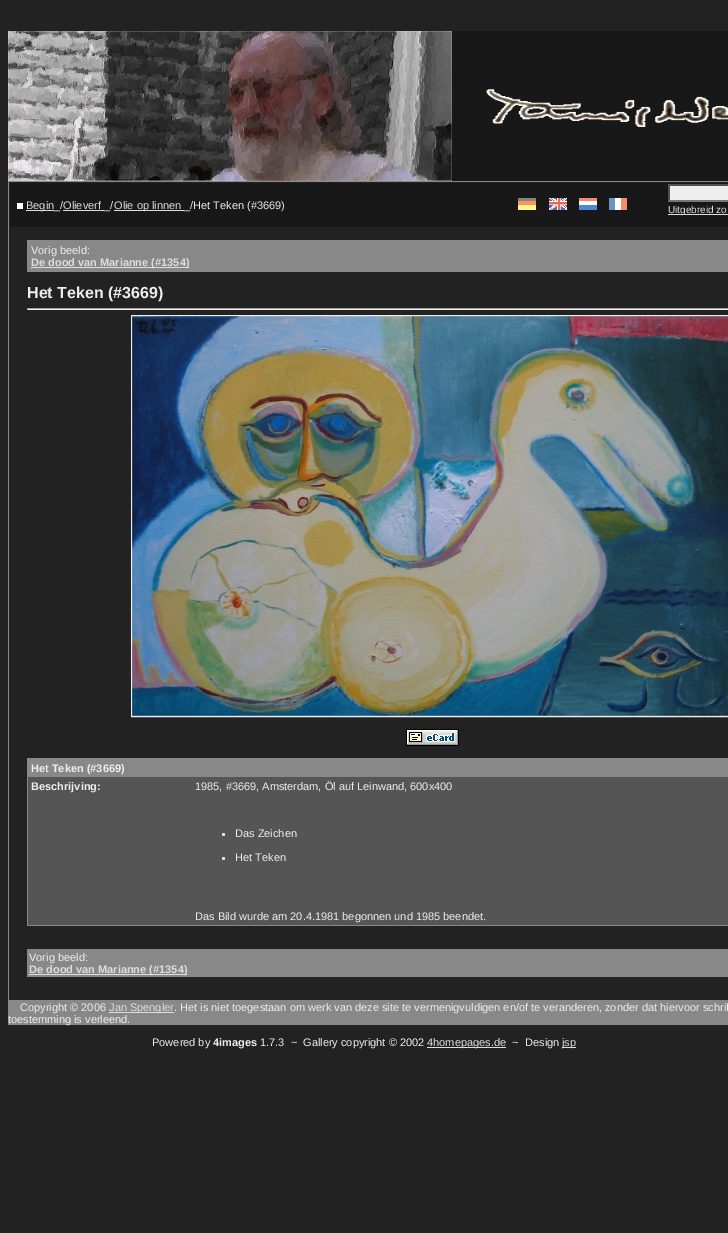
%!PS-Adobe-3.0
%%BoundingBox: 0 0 728 1233
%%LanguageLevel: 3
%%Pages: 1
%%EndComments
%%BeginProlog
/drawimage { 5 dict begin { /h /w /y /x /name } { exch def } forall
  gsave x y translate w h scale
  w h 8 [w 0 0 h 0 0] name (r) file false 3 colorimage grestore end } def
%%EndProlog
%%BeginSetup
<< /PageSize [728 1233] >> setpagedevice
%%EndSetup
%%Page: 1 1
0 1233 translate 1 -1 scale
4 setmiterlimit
0.133 setgray
0 0 728 1233 rectfill
0.094 setgray
452 31 276 150 rectfill
(images/1.raw) 8 31 444 150 drawimage
(images/2.raw) 486 89 242 38 drawimage
0.533 setgray
8 181 720 844 rectfill
0.133 setgray
9 182 719 818 rectfill
0.094 setgray
10 183 718 44 rectfill
1 setgray
17 203 6 6 rectfill
0.867 setgray
26 210 28 1 rectfill
114 210 70 1 rectfill
(images/3.raw) 518 198 18 12 drawimage
(images/4.raw) 549 198 18 12 drawimage
(images/5.raw) 579 198 18 12 drawimage
(images/6.raw) 609 198 18 12 drawimage
0.933 setgray
668 184 60 18 rectfill
0.31 setgray
newpath 668 184 moveto 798 184 lineto 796 186 lineto 670 186 lineto closepath fill
0.463 setgray
newpath 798 202 moveto 668 202 lineto 670 200 lineto 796 200 lineto closepath fill
0.31 setgray
newpath 668 202 moveto 668 184 lineto 670 186 lineto 670 200 lineto closepath fill
0.867 setgray
668 214 60 1 rectfill
0.533 setgray
27 240 701 32 rectfill
0.867 setgray
31 267 158 1 rectfill
0.933 setgray
27 309 701 1 rectfill
0.624 setgray
27 308 701 1 rectfill
27 308 1 2 rectfill
0.933 setgray
131.5 315.5 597 401 rectstroke
(images/7.raw) 132 316 596 400 drawimage
(images/8.raw) 406 729 53 17 drawimage
0.533 setgray
27 758 701 168 rectfill
0.333 setgray
28 777 700 148 rectfill
0.933 setgray
newpath 223.5 834.5 1.5 0 360 arc closepath fill
newpath 223.5 858.5 1.5 0 360 arc closepath fill
0.533 setgray
27 949 701 28 rectfill
0.867 setgray
29 974 158 1 rectfill
109 1012 65 1 rectfill
427 1047 79 1 rectfill
562 1047 14 1 rectfill
/LiberationSans-Regular [11 0 0 -11 0 0] selectfont
26 209 moveto (Begin) show
0.933 setgray
54 209 moveto (_/) show
0.867 setgray
63 210 41 1 rectfill
63 209 moveto (Olieverf) show
0.933 setgray
104 209 moveto (_/) show
0.867 setgray
114 209 moveto (Olie op linnen) show
0.933 setgray
184 209 moveto (_/Het Teken \(#3669\)) show
/LiberationSans-Regular [10 0 0 -10 0 0] selectfont
0.867 setgray
668 213 moveto (Uitgebreid zo) show
/LiberationSans-Regular [11 0 0 -11 0 0] selectfont
0.933 setgray
31 254 moveto (Vorig beeld:) show
/LiberationSans-Bold [11 0 0 -11 0 0] selectfont
0.867 setgray
31 266 moveto (De dood van Marianne \(#1354\)) show
/LiberationSans-Bold [16 0 0 -16 0 0] selectfont
0.933 setgray
27 298 moveto (Het Teken \(#3669\)) show
/LiberationSans-Bold [11 0 0 -11 0 0] selectfont
31 772 moveto (Het Teken \(#3669\)) show
31 790 moveto (Beschrijving:) show
/LiberationSans-Regular [11 0 0 -11 0 0] selectfont
195 790 moveto (1985, #3669, Amsterdam, Öl auf Leinwand, 600x400) show
235 837 moveto (Das Zeichen) show
235 861 moveto (Het Teken) show
195 920 moveto (Das Bild wurde am 20.4.1981 begonnen und 1985 beendet.) show
29 961 moveto (Vorig beeld:) show
/LiberationSans-Bold [11 0 0 -11 0 0] selectfont
0.867 setgray
29 973 moveto (De dood van Marianne \(#1354\)) show
/LiberationSans-Regular [11 0 0 -11 0 0] selectfont
0.933 setgray
20 1011 moveto (Copyright © 2006) show
0.867 setgray
109 1011 moveto (Jan Spengler) show
0.933 setgray
174 1011 moveto (. Het is niet toegestaan om werk van deze site te vermenigvuldigen en/of te veranderen, zonder dat hiervoor schrif) show
8 1023 moveto (toestemming is verleend.) show
152 1046 moveto (Powered by) show
/LiberationSans-Bold [11 0 0 -11 0 0] selectfont
213 1046 moveto (4images) show
/LiberationSans-Regular [11 0 0 -11 0 0] selectfont
260 1046 moveto (1.7.3) show
291 1046 moveto (~) show
303 1046 moveto (Gallery copyright © 2002) show
0.867 setgray
427 1046 moveto (4homepages.de) show
0.933 setgray
512 1046 moveto (~) show
525 1046 moveto (Design) show
0.867 setgray
562 1046 moveto (jsp) show
showpage
%%EOF
